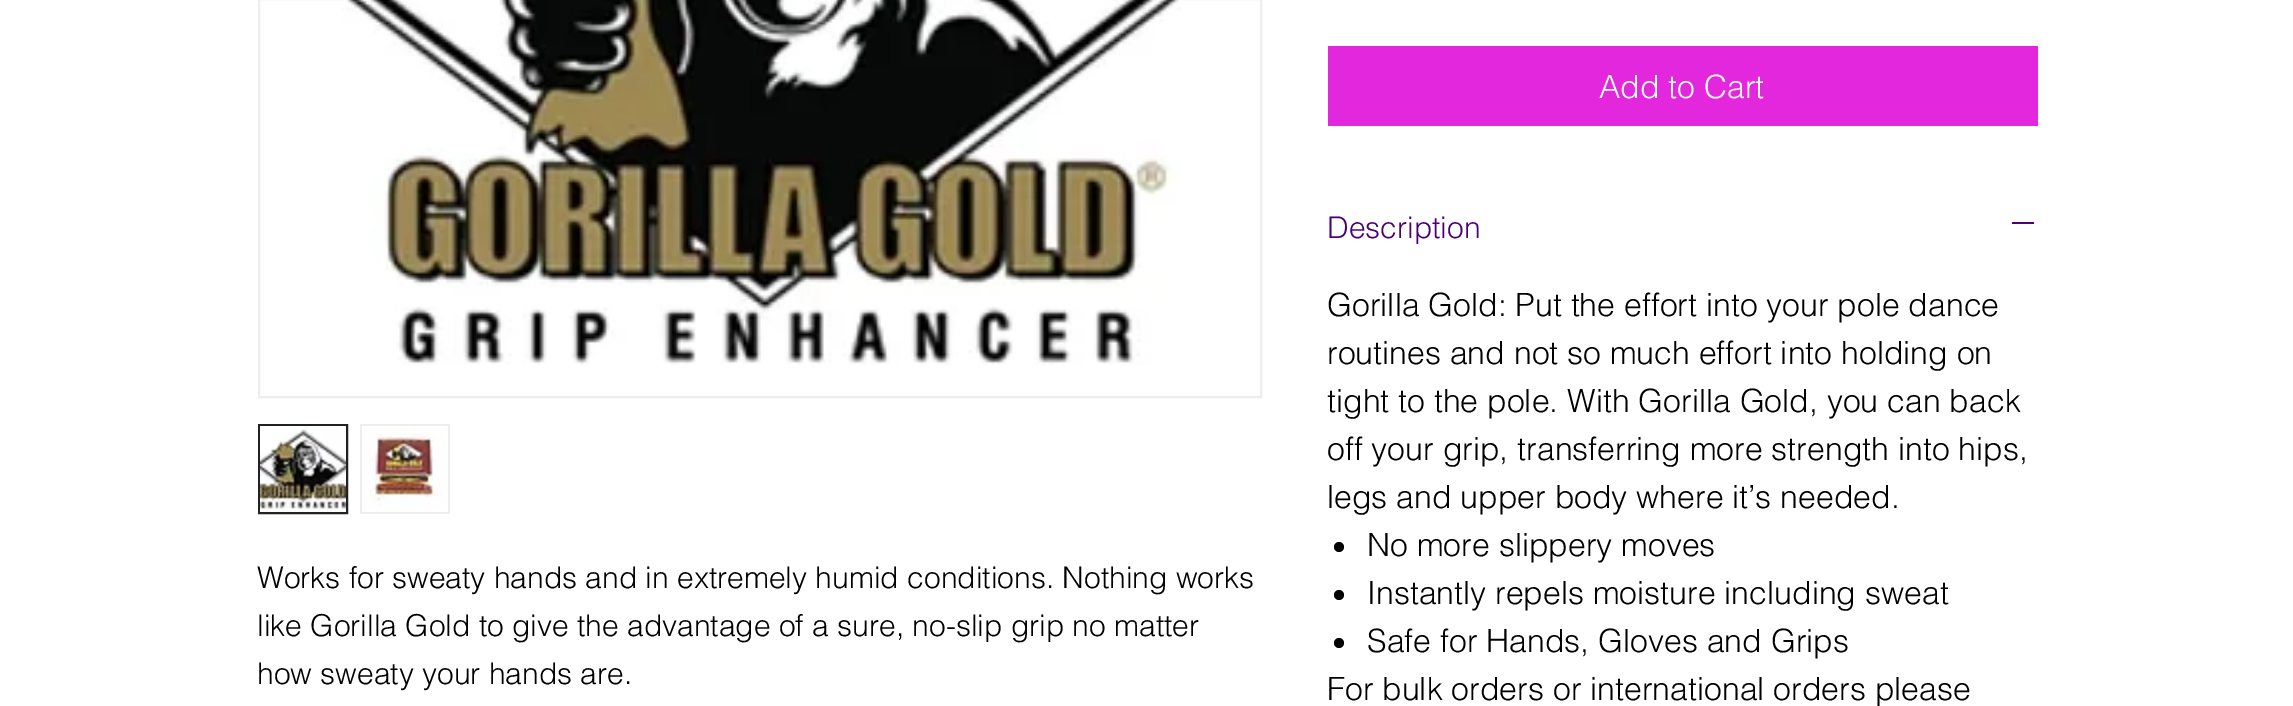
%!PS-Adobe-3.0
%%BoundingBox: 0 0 2293 706
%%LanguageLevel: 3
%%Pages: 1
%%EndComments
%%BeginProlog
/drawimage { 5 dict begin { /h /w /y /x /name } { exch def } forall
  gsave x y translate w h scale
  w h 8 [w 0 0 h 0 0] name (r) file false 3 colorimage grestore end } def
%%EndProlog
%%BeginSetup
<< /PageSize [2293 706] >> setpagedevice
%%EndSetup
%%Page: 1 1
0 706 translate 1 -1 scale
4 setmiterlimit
1 setgray
0 0 2293 706 rectfill
0.933 setgray
2 setlinewidth
259 -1 1002 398 rectstroke
(images/1.raw) 341 0 840 365 drawimage
0.129 0.133 0.137 setrgbcolor
259 425 88 88 rectstroke
(images/2.raw) 260 426 86 86 drawimage
0.933 setgray
360 424 90 90 rectfill
(images/3.raw) 362 426 86 86 drawimage
0.89 0.153 0.867 setrgbcolor
1328 46 710 80 rectfill
0.294 0 0.455 setrgbcolor
2012 222 22 2 rectfill
0 setgray
newpath 1339 547 5 0 360 arc closepath fill
newpath 1339 595 5 0 360 arc closepath fill
newpath 1339 643 5 0 360 arc closepath fill
/helvetica-Light [30 0 0 -30 0 0] selectfont
257 588 moveto (Works for sweaty hands and in extremely humid conditions. Nothing works) show
257 636 moveto (like Gorilla Gold to give the advantage of a sure, no-slip grip no matter) show
257 684 moveto (how sweaty your hands are.) show
/helvetica-Light [32 0 0 -32 0 0] selectfont
1 setgray
1599 98 moveto (Add to Cart) show
/helvetica-Light [30 0 0 -30 0 0] selectfont
0.294 0 0.455 setrgbcolor
1327 238 moveto (Description) show
/helvetica-Light [32 0 0 -32 0 0] selectfont
0 setgray
1327 316 moveto (Gorilla Gold: Put the effort into your pole dance) show
1327 364 moveto (routines and not so much effort into holding on) show
1327 412 moveto (tight to the pole. With Gorilla Gold, you can back) show
1327 460 moveto (off your grip, transferring more strength into hips,) show
1327 508 moveto (legs and upper body where it’s needed.) show
1367 556 moveto (No more slippery moves) show
1367 604 moveto (Instantly repels moisture including sweat) show
1367 652 moveto (Safe for Hands, Gloves and Grips) show
1327 700 moveto (For bulk orders or international orders please) show
showpage
%%EOF
